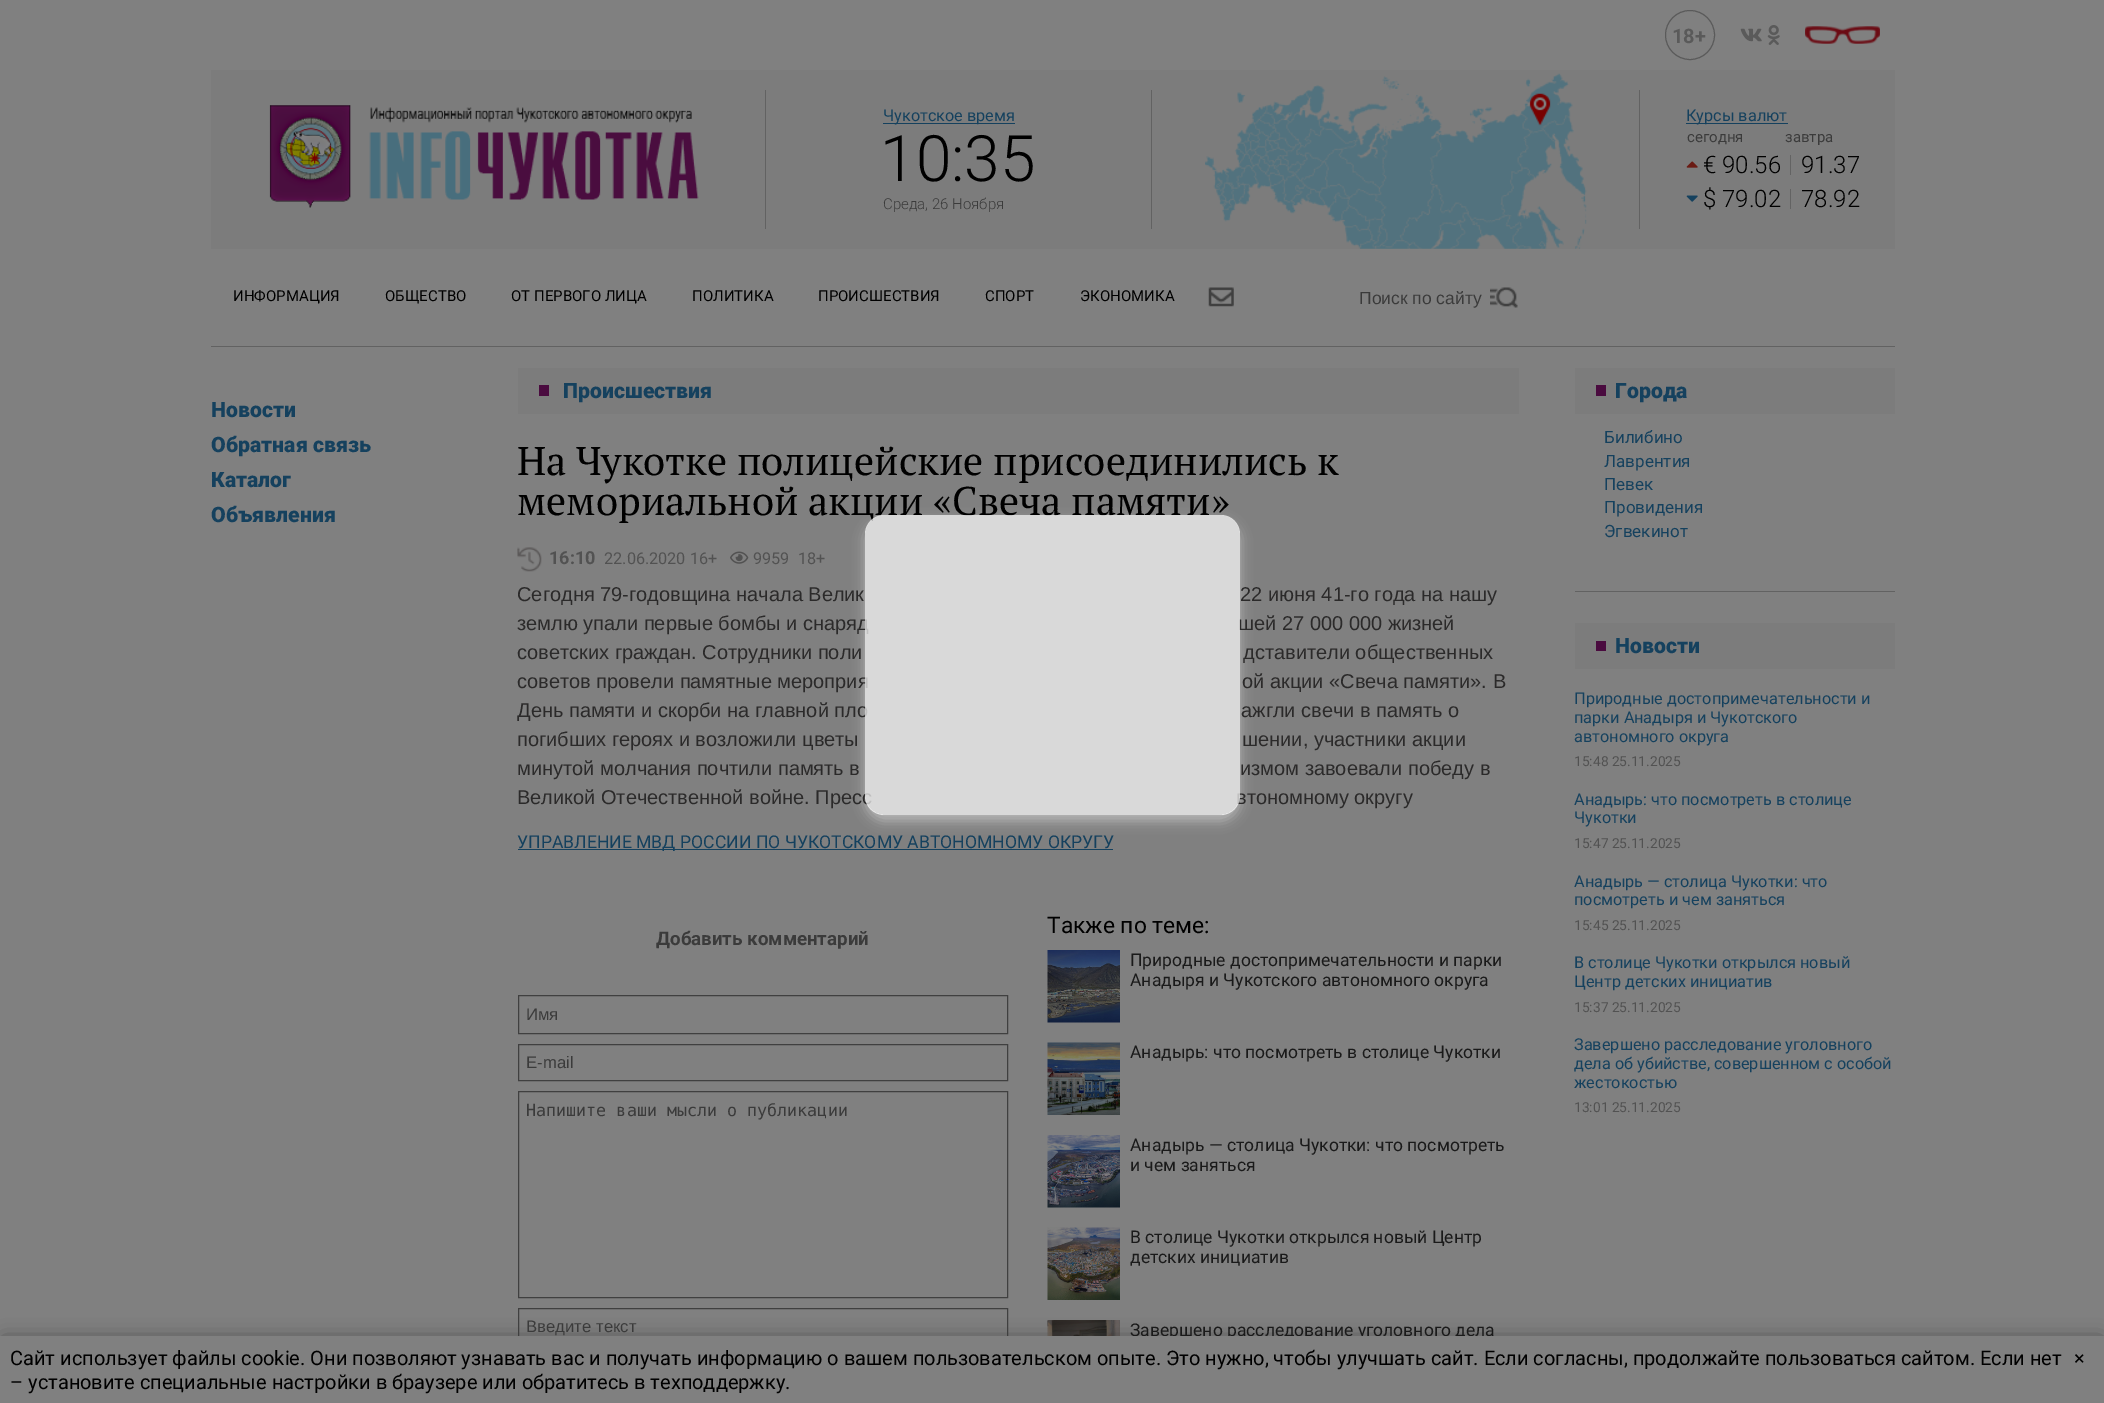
%!PS-Adobe-3.0
%%BoundingBox: 0 0 2104 1403
%%LanguageLevel: 3
%%Pages: 1
%%EndComments
%%BeginProlog
/setalpha { dup .setfillconstantalpha .setstrokeconstantalpha } def
/rrect { 5 dict begin { /r /h /w /y /x } { exch def } forall
  x r add y moveto x w add y 2 copy h add r arct x w add y h add x 1 index r arct
  x y h add x y r arct x y 2 copy exch w add exch r arct closepath end } def
/softshadow { 12 dict begin { /a /b /q /h /w /y /x } { exch def } forall gsave /was 0 def
  9 -2 -9 { dup b mul 4 div /e exch def 1 sub .425 mul 2.718 exch exp 1 add a .99 .min exch div /now exch def
    1 1 now sub 1 was sub div sub setalpha /was now def
    w h .min e 2 mul add 0 gt { x e sub y e sub w e 2 mul add h e 2 mul add
      q e add b .6 mul add w h .min 2 div e add .min 0 .max rrect fill } if } for grestore end } def
/drawimage { 5 dict begin { /h /w /y /x /name } { exch def } forall
  gsave x y translate w h scale
  w h 8 [w 0 0 h 0 0] name (r) file false 3 colorimage grestore end } def
%%EndProlog
%%BeginSetup
<< /PageSize [2104 1403] /PageUsesTransparency true >> setpagedevice
%%EndSetup
%%Page: 1 1
0 .pushpdf14devicefilter
0 1403 translate 1 -1 scale
4 setmiterlimit
0.502 setgray
0 0 2104 1403 rectfill
0.353 setgray
newpath 1690 35 24.5 0 360 arc closepath stroke
(images/1.raw) 1740 28 22 14 drawimage
(images/2.raw) 1767 25 13 20 drawimage
(images/3.raw) 1805 26 75 18 drawimage
0.486 setgray
211 70 1684 179 rectfill
(images/4.raw) 269 105 430 103 drawimage
0.384 setgray
765 90 1 139 rectfill
0.082 0.255 0.369 setrgbcolor
883 123 132 1 rectfill
0.384 setgray
1151 90 1 139 rectfill
(images/5.raw) 1205 73 382 176 drawimage
1639 90 1 139 rectfill
0.082 0.255 0.369 setrgbcolor
1686 123 102 1 rectfill
(images/6.raw) 1686 161 12 7 drawimage
0.388 setgray
1790 155 1 20 rectfill
(images/7.raw) 1686 195 12 7 drawimage
1790 189 1 20 rectfill
0.384 setgray
211 346 1684 1 rectfill
(images/8.raw) 1208 287 26 20 drawimage
(images/9.raw) 1490 287 28 21 drawimage
0.486 setgray
518 368 1001 46 rectfill
0.29 0.043 0.247 setrgbcolor
539 385 10 11 rectfill
(images/10.raw) 517 547 25 25 drawimage
(images/11.raw) 730 551 19 13 drawimage
0.082 0.255 0.369 setrgbcolor
518 849 595 1 rectfill
0.251 setgray
518.5 995.5 489 38 rectstroke
518.5 1044.5 489 36 rectstroke
518.5 1091.5 489 206 rectstroke
518.5 1308.5 489 36 rectstroke
(images/12.raw) 1047 950 73 73 drawimage
(images/13.raw) 1047 1042 73 73 drawimage
(images/14.raw) 1047 1135 73 73 drawimage
(images/15.raw) 1047 1227 73 73 drawimage
(images/16.raw) 1047 1320 73 16 drawimage
0.384 setgray
1575 591 320 1 rectfill
0.486 setgray
1575 368 320 46 rectfill
0.29 0.043 0.247 setrgbcolor
1596 385 10 11 rectfill
0.486 setgray
1575 623 320 46 rectfill
0.29 0.043 0.247 setrgbcolor
1596 641 10 10 rectfill
gsave
newpath 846 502 moveto 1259 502 lineto 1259 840 lineto 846 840 lineto closepath 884 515 moveto 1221 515 lineto 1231.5 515 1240 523.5 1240 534 curveto 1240 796 lineto 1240 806.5 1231.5 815 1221 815 curveto 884 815 lineto 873.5 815 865 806.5 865 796 curveto 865 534 lineto 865 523.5 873.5 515 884 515 curveto closepath eoclip newpath
0.8 setgray
865 521 375 300 19 6 0.7 softshadow
grestore
0.251 setgray
4 1340 2097 60 0 10 1 softshadow
/Roboto-Bold [20 0 0 -20 0 0] selectfont
0.353 setgray
1672 43 moveto (18+) show
/Roboto-Regular [16.25 0 0 -16.25 0 0] selectfont
0.082 0.255 0.369 setrgbcolor
883 121 moveto (Чукотское время) show
/Roboto-Light [64 0 0 -64 0 0] selectfont
0 setgray
880 181 moveto (10:35) show
/Roboto-Light [15 0 0 -15 0 0] selectfont
0.231 setgray
883 209 moveto (Среда, 26 Ноября) show
/Roboto-Regular [16.25 0 0 -16.25 0 0] selectfont
0.082 0.255 0.369 setrgbcolor
1686 121 moveto (Курсы валют) show
/Roboto-Regular [15 0 0 -15 0 0] selectfont
0.231 setgray
1687 142 moveto (сегодня) show
1785 142 moveto (завтра) show
/Roboto-Light [24 0 0 -24 0 0] selectfont
0 setgray
1703 173 moveto (€) show
1722 173 moveto (90.56) show
1801 173 moveto (91.37) show
1703 207 moveto ($) show
1722 207 moveto (79.02) show
1801 207 moveto (78.92) show
/Roboto-Regular [15 0 0 -15 0 0] selectfont
233 301 moveto (ИНФОРМАЦИЯ) show
385 301 moveto (ОБЩЕСТВО) show
511 301 moveto (ОТ ПЕРВОГО ЛИЦА) show
692 301 moveto (ПОЛИТИКА) show
818 301 moveto (ПРОИСШЕСТВИЯ) show
985 301 moveto (СПОРТ) show
1080 301 moveto (ЭКОНОМИКА) show
/LiberationSans-Regular [17.5 0 0 -17.5 0 0] selectfont
0.231 setgray
1359 304 moveto (Поиск по сайту) show
/Roboto-Black [21.25 0 0 -21.25 0 0] selectfont
0.082 0.255 0.369 setrgbcolor
211 417 moveto (Новости) show
211 452 moveto (Обратная связь) show
211 487 moveto (Каталог) show
211 522 moveto (Объявления) show
563 398 moveto (Происшествия) show
/PTSerif-Regular [40 0 0 -40 0 0] selectfont
0 setgray
517 475 moveto (На Чукотке полицейские присоединились к) show
517 515 moveto (мемориальной акции «Свеча памяти») show
/Roboto-Bold [18 0 0 -18 0 0] selectfont
0.322 setgray
549 564 moveto (16:10) show
/Roboto-Regular [16.25 0 0 -16.25 0 0] selectfont
604 564 moveto (22.06.2020 16+) show
753 564 moveto (9959) show
798 564 moveto (18+) show
/LiberationSans-Regular [20 0 0 -20 0 0] selectfont
0.169 0.165 0.165 setrgbcolor
517 601 moveto (Сегодня 79-годовщина начала Велик) show
1240 601 moveto (22 июня 41-го года на нашу) show
517 630 moveto (землю упали первые бомбы и снаряд) show
1238 630 moveto (шей 27 000 000 жизней) show
517 659 moveto (советских граждан. Сотрудники поли) show
1243 659 moveto (дставители общественных) show
517 688 moveto (советов провели памятные мероприя) show
1242 688 moveto (ой акции «Свеча памяти». В) show
517 717 moveto (День памяти и скорби на главной пло) show
1241 717 moveto (ажгли свечи в память о) show
517 746 moveto (погибших героях и возложили цветы) show
1242 746 moveto (шении, участники акции) show
517 775 moveto (минутой молчания почтили память в) show
1240 775 moveto (измом завоевали победу в) show
517 804 moveto (Великой Отечественной войне. Пресс) show
1236 804 moveto (втономному округу) show
/Roboto-Regular [17.6 0 0 -17.6 0 0] selectfont
0.082 0.255 0.369 setrgbcolor
517 848 moveto (УПРАВЛЕНИЕ МВД РОССИИ ПО ЧУКОТСКОМУ АВТОНОМНОМУ ОКРУГУ) show
/Roboto-Bold [18.75 0 0 -18.75 0 0] selectfont
0.231 setgray
656 945 moveto (Добавить комментарий) show
/LiberationSans-Regular [16.7 0 0 -16.7 0 0] selectfont
526 1020 moveto (Имя) show
526 1068 moveto (E-mail) show
/DejaVuSansMono-Regular [16.7 0 0 -16.7 0 0] selectfont
526 1116 moveto (Напишите ваши мысли о публикации) show
/LiberationSans-Regular [16.7 0 0 -16.7 0 0] selectfont
526 1332 moveto (Введите текст) show
/Roboto-Regular [22.75 0 0 -22.75 0 0] selectfont
0 setgray
1047 933 moveto (Также по теме:) show
/Roboto-Regular [17.5 0 0 -17.5 0 0] selectfont
0.102 setgray
1130 966 moveto (Природные достопримечательности и парки) show
1130 986 moveto (Анадыря и Чукотского автономного округа) show
1130 1058 moveto (Анадырь: что посмотреть в столице Чукотки) show
1130 1151 moveto (Анадырь — столица Чукотки: что посмотреть) show
1130 1171 moveto (и чем заняться) show
1130 1243 moveto (В столице Чукотки открылся новый Центр) show
1130 1263 moveto (детских инициатив) show
1130 1336 moveto (Завершено расследование уголовного дела) show
/Roboto-Black [21.25 0 0 -21.25 0 0] selectfont
0.082 0.255 0.369 setrgbcolor
1615 398 moveto (Города) show
/Roboto-Regular [17 0 0 -17 0 0] selectfont
1604 443 moveto (Билибино) show
1604 467 moveto (Лаврентия) show
1604 490 moveto (Певек) show
1604 513 moveto (Провидения) show
1604 537 moveto (Эгвекинот) show
/Roboto-Black [21.25 0 0 -21.25 0 0] selectfont
1615 653 moveto (Новости) show
/Roboto-Regular [16.25 0 0 -16.25 0 0] selectfont
1574 704 moveto (Природные достопримечательности и) show
1574 723 moveto (парки Анадыря и Чукотского) show
1574 742 moveto (автономного округа) show
/Roboto-Regular [13.75 0 0 -13.75 0 0] selectfont
0.322 setgray
1574 766 moveto (15:48 25.11.2025) show
/Roboto-Regular [16.25 0 0 -16.25 0 0] selectfont
0.082 0.255 0.369 setrgbcolor
1574 805 moveto (Анадырь: что посмотреть в столице) show
1574 823 moveto (Чукотки) show
/Roboto-Regular [13.75 0 0 -13.75 0 0] selectfont
0.322 setgray
1574 848 moveto (15:47 25.11.2025) show
/Roboto-Regular [16.25 0 0 -16.25 0 0] selectfont
0.082 0.255 0.369 setrgbcolor
1574 887 moveto (Анадырь — столица Чукотки: что) show
1574 905 moveto (посмотреть и чем заняться) show
/Roboto-Regular [13.75 0 0 -13.75 0 0] selectfont
0.322 setgray
1574 930 moveto (15:45 25.11.2025) show
/Roboto-Regular [16.25 0 0 -16.25 0 0] selectfont
0.082 0.255 0.369 setrgbcolor
1574 968 moveto (В столице Чукотки открылся новый) show
1574 987 moveto (Центр детских инициатив) show
/Roboto-Regular [13.75 0 0 -13.75 0 0] selectfont
0.322 setgray
1574 1012 moveto (15:37 25.11.2025) show
/Roboto-Regular [16.25 0 0 -16.25 0 0] selectfont
0.082 0.255 0.369 setrgbcolor
1574 1050 moveto (Завершено расследование уголовного) show
1574 1069 moveto (дела об убийстве, совершенном с особой) show
1574 1088 moveto (жестокостью) show
/Roboto-Regular [13.75 0 0 -13.75 0 0] selectfont
0.322 setgray
1574 1112 moveto (13:01 25.11.2025) show
0.7 setalpha
1 setgray
865 515 375 300 19 rrect fill
1 setalpha
0.502 setgray
0 1336 2104 67 rectfill
/Roboto-Regular [20 0 0 -20 0 0] selectfont
0 setgray
10 1365 moveto (Сайт использует файлы cookie. Они позволяют узнавать вас и получать информацию о вашем пользовательском опыте. Это нужно, чтобы улучшать сайт. Если согласны, продолжайте пользоваться сайтом. Если нет) show
2074 1365 moveto (×) show
10 1389 moveto (– установите специальные настройки в браузере или обратитесь в техподдержку.) show
.poppdf14devicefilter showpage
%%EOF
